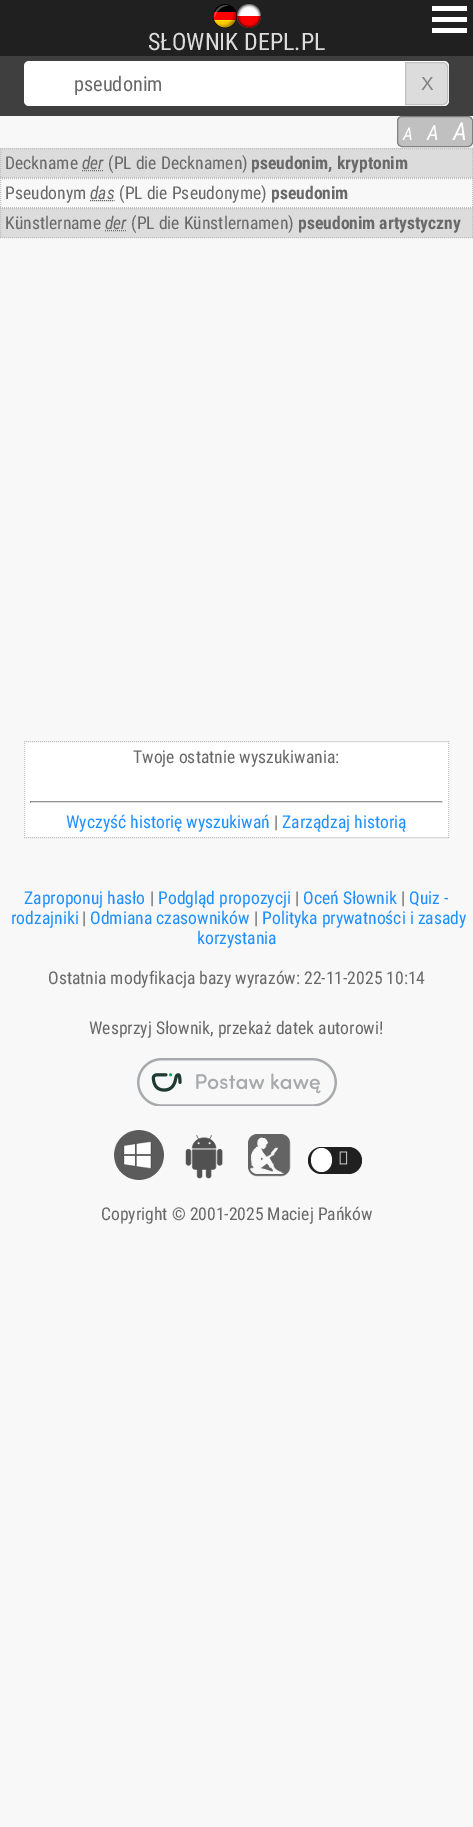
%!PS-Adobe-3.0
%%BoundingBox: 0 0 473 1827
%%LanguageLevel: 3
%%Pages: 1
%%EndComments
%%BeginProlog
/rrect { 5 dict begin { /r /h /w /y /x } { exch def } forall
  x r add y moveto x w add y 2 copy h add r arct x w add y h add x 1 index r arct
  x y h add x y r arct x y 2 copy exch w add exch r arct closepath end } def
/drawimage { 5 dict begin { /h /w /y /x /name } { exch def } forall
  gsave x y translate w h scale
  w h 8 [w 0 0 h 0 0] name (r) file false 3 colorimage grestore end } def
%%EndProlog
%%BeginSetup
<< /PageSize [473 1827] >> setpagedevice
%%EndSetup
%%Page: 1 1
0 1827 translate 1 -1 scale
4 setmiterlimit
0.973 setgray
0 0 473 1827 rectfill
0.129 0.125 0.125 setrgbcolor
0 0 473 56 rectfill
(images/1.raw) 213 4 24 24 drawimage
(images/2.raw) 237 4 24 24 drawimage
(images/3.raw) 432 6 35 27 drawimage
0.247 setgray
0 56 473 60 rectfill
1 setgray
24 61 425 45 5 rrect fill
0.863 setgray
newpath 405.5 62.5 moveto 443 62.5 lineto 445.5 62.5 447.5 64.5 447.5 67 curveto 447.5 100 lineto 447.5 102.5 445.5 104.5 443 104.5 curveto 405.5 104.5 lineto closepath gsave fill grestore
0.753 setgray
stroke
397.5 116.5 75 30 4.5 rrect gsave fill grestore
0.502 setgray
stroke
0.863 setgray
0 148 473 30 rectfill
0.753 setgray
[1 1] 0 setdash
newpath 0 148.5 moveto 473 148.5 lineto stroke
newpath 472.5 148 moveto 472.5 178 lineto stroke
newpath 0 177.5 moveto 473 177.5 lineto stroke
newpath 0.5 148 moveto 0.5 178 lineto stroke
0.412 setgray
newpath 82 170.5 moveto 103.5 170.5 lineto stroke
0.753 setgray
newpath 0 178.5 moveto 473 178.5 lineto stroke
newpath 472.5 178 moveto 472.5 208 lineto stroke
newpath 0 207.5 moveto 473 207.5 lineto stroke
newpath 0.5 178 moveto 0.5 208 lineto stroke
0.412 setgray
newpath 90 200.5 moveto 114.5 200.5 lineto stroke
0.863 setgray
0 208 473 30 rectfill
0.753 setgray
newpath 0 208.5 moveto 473 208.5 lineto stroke
newpath 472.5 208 moveto 472.5 238 lineto stroke
newpath 0 237.5 moveto 473 237.5 lineto stroke
newpath 0.5 208 moveto 0.5 238 lineto stroke
0.412 setgray
newpath 105 230.5 moveto 126.5 230.5 lineto stroke
1 setgray
24 741 425 97 rectfill
0.753 setgray
newpath 24 741.5 moveto 449 741.5 lineto stroke
newpath 448.5 741 moveto 448.5 838 lineto stroke
newpath 24 837.5 moveto 449 837.5 lineto stroke
newpath 24.5 741 moveto 24.5 838 lineto stroke
0.576 setgray
30 801 413 1 rectfill
0.863 setgray
442 801 1 2 rectfill
30 802 413 1 rectfill
0.576 setgray
30 801 1 2 rectfill
(images/4.raw) 137 1058 200 48 drawimage
(images/5.raw) 114 1130 50 50 drawimage
(images/6.raw) 185 1135 38 44 drawimage
(images/7.raw) 248 1134 43 43 drawimage
0.129 0.125 0.125 setrgbcolor
308 1147 54 27 13.5 rrect fill
(images/8.raw) 314 1151 1 1 drawimage
1 setgray
newpath 321.5 1148 moveto 327.5 1148 332 1153.5 332 1160 curveto 332 1166.5 327.5 1172 321.5 1172 curveto 315.5 1172 311 1166.5 311 1160 curveto 311 1153.5 315.5 1148 321.5 1148 curveto closepath fill
(images/9.raw) 339 1151 9 14 drawimage
/RobotoCondensed-Regular [24 0 0 -24 0 0] selectfont
0.863 setgray
148 50 moveto (SŁOWNIK DEPL.PL) show
/RobotoCondensed-Regular [20.25 0 0 -20.25 0 0] selectfont
0.412 setgray
74 91 moveto (pseudonim) show
/LiberationSans-Regular [19 0 0 -19 0 0] selectfont
0.502 setgray
421 90 moveto (X) show
/RobotoCondensed-Italic [17.6 0 0 -17.6 0 0] selectfont
1 setgray
403 140 moveto (A) show
/RobotoCondensed-Italic [21 0 0 -21 0 0] selectfont
427 140 moveto (A) show
/RobotoCondensed-Italic [25 0 0 -25 0 0] selectfont
453 140 moveto (A) show
/RobotoCondensed-Regular [17.6 0 0 -17.6 0 0] selectfont
0.412 setgray
5 169 moveto (Deckname) show
/RobotoCondensed-Italic [17.6 0 0 -17.6 0 0] selectfont
82 169 moveto (der) show
/RobotoCondensed-Regular [17.6 0 0 -17.6 0 0] selectfont
108 169 moveto (\(PL die Decknamen\)) show
/RobotoCondensed-Bold [17.6 0 0 -17.6 0 0] selectfont
251 169 moveto (pseudonim, kryptonim) show
/RobotoCondensed-Regular [17.6 0 0 -17.6 0 0] selectfont
5 199 moveto (Pseudonym) show
/RobotoCondensed-Italic [17.6 0 0 -17.6 0 0] selectfont
90 199 moveto (das) show
/RobotoCondensed-Regular [17.6 0 0 -17.6 0 0] selectfont
119 199 moveto (\(PL die Pseudonyme\)) show
/RobotoCondensed-Bold [17.6 0 0 -17.6 0 0] selectfont
271 199 moveto (pseudonim) show
/RobotoCondensed-Regular [17.6 0 0 -17.6 0 0] selectfont
5 229 moveto (Künstlername) show
/RobotoCondensed-Italic [17.6 0 0 -17.6 0 0] selectfont
105 229 moveto (der) show
/RobotoCondensed-Regular [17.6 0 0 -17.6 0 0] selectfont
131 229 moveto (\(PL die Künstlernamen\)) show
/RobotoCondensed-Bold [17.6 0 0 -17.6 0 0] selectfont
298 229 moveto (pseudonim artystyczny) show
/RobotoCondensed-Regular [17.6 0 0 -17.6 0 0] selectfont
133 763 moveto (Twoje ostatnie wyszukiwania:) show
0.118 0.565 1 setrgbcolor
66 828 moveto (Wyczyść historię wyszukiwań) show
0.412 setgray
274 828 moveto (|) show
0.118 0.565 1 setrgbcolor
282 828 moveto (Zarządzaj historią) show
24 904 moveto (Zaproponuj hasło) show
0.412 setgray
150 904 moveto (|) show
0.118 0.565 1 setrgbcolor
158 904 moveto (Podgląd propozycji) show
0.412 setgray
295 904 moveto (|) show
0.118 0.565 1 setrgbcolor
303 904 moveto (Oceń Słownik) show
0.412 setgray
401 904 moveto (|) show
0.118 0.565 1 setrgbcolor
409 904 moveto (Quiz -) show
11 924 moveto (rodzajniki) show
0.412 setgray
82 924 moveto (|) show
0.118 0.565 1 setrgbcolor
90 924 moveto (Odmiana czasowników) show
0.412 setgray
254 924 moveto (|) show
0.118 0.565 1 setrgbcolor
262 924 moveto (Polityka prywatności i zasady) show
197 944 moveto (korzystania) show
0.412 setgray
48 984 moveto (Ostatnia modyfikacja bazy wyrazów: 22-11-2025 10:14) show
89 1034 moveto (Wesprzyj Słownik, przekaż datek autorowi!) show
101 1220 moveto (Copyright © 2001-2025 Maciej Pańków) show
showpage
%%EOF
